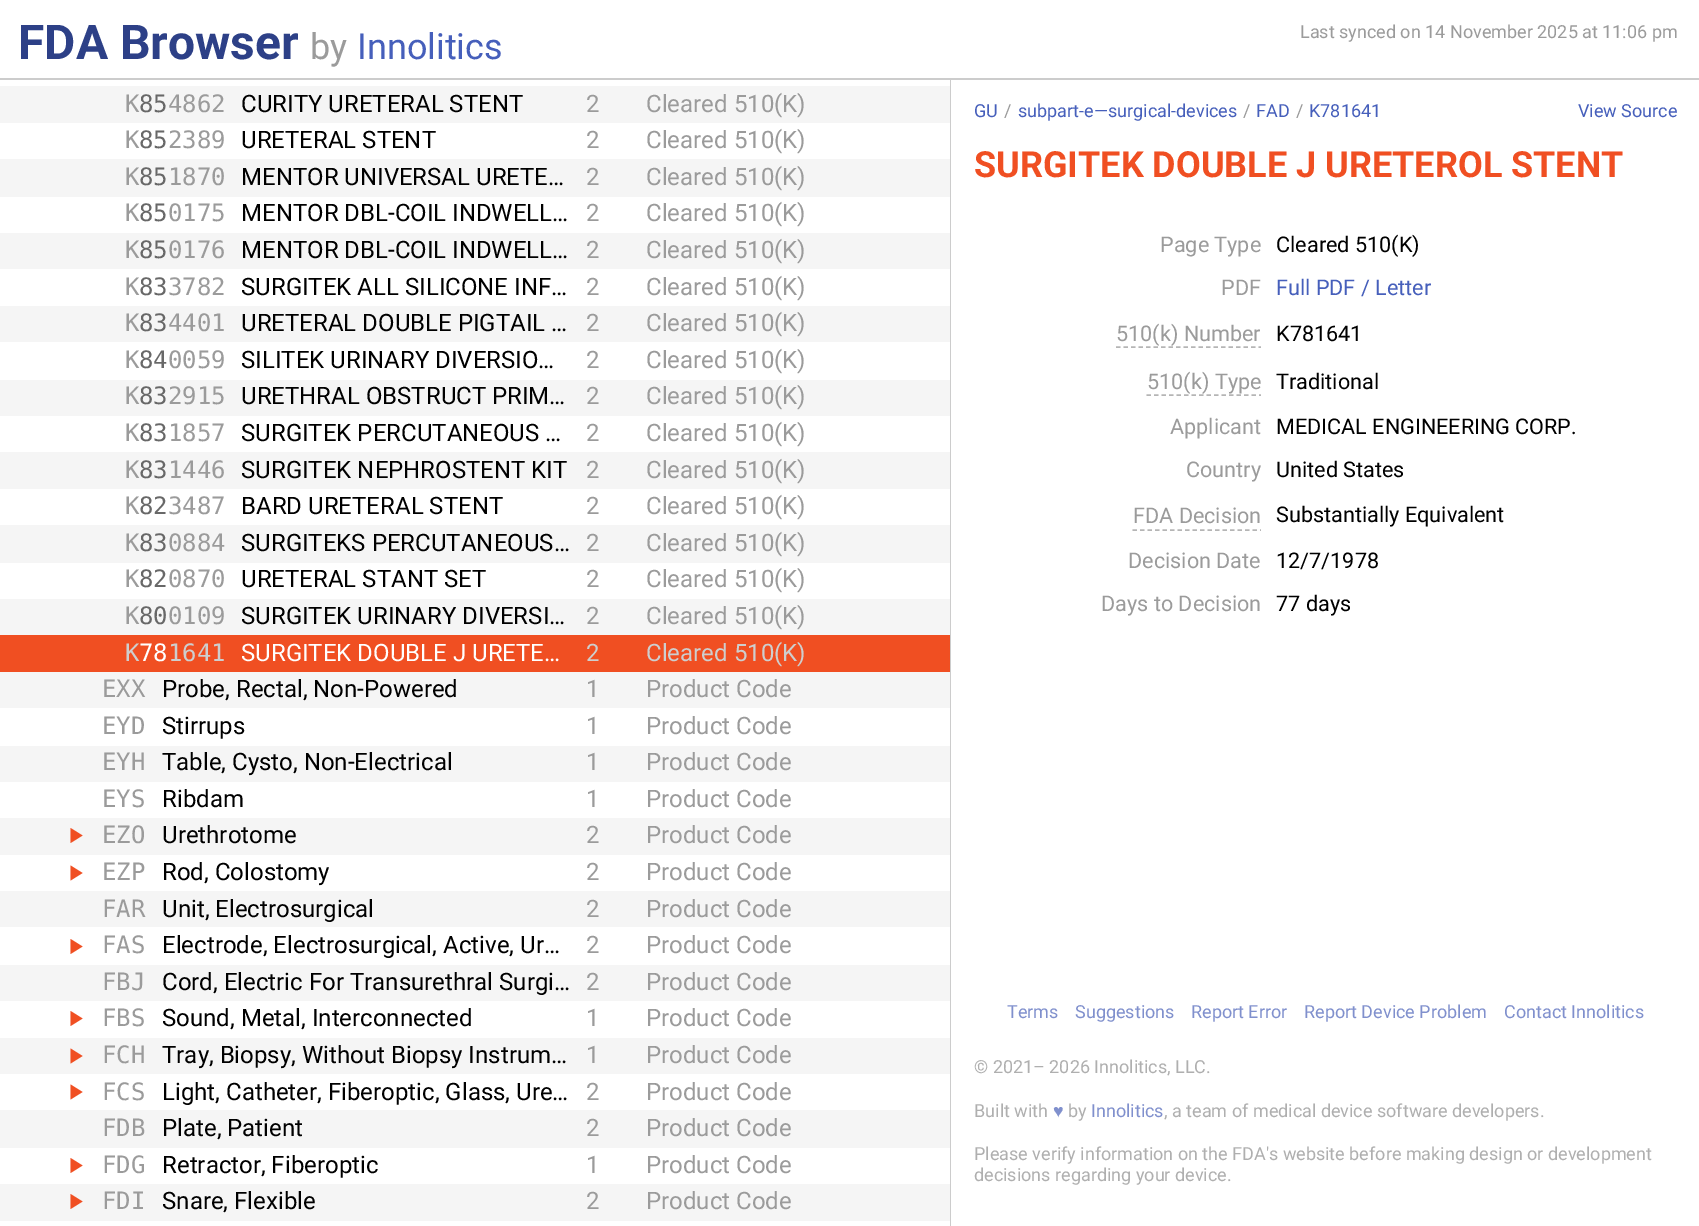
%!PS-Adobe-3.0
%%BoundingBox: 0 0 1699 1226
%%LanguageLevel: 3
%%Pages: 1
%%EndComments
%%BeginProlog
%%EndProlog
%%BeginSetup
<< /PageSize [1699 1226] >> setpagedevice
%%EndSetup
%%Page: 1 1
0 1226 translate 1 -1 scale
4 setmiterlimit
1 setgray
0 0 1699 1226 rectfill
0.8 setgray
0 78 1699 2 rectfill
950 80 1 1146 rectfill
0.961 setgray
0 672 950 549 rectfill
0 86 950 37 rectfill
0 159 950 38 rectfill
0 233 950 36 rectfill
0 306 950 36 rectfill
0 380 950 36 rectfill
0 452 950 37 rectfill
0 525 950 38 rectfill
0 599 950 36 rectfill
0.941 0.31 0.133 setrgbcolor
0 635 950 37 rectfill
1 setgray
0 708 950 38 rectfill
0 782 950 36 rectfill
0.941 0.31 0.133 setrgbcolor
newpath 70.5 843 moveto 70.5 828 lineto 82.5 835.5 lineto closepath fill
1 setgray
0 855 950 36 rectfill
0.941 0.31 0.133 setrgbcolor
newpath 70.5 880.5 moveto 70.5 865.5 lineto 82.5 873 lineto closepath fill
1 setgray
0 927 950 38 rectfill
0.941 0.31 0.133 setrgbcolor
newpath 70.5 954 moveto 70.5 939 lineto 82.5 946.5 lineto closepath fill
1 setgray
0 1001 950 37 rectfill
0.941 0.31 0.133 setrgbcolor
newpath 70.5 1026 moveto 70.5 1011 lineto 82.5 1018.5 lineto closepath fill
newpath 70.5 1063.5 moveto 70.5 1048.5 lineto 82.5 1056 lineto closepath fill
1 setgray
0 1074 950 36 rectfill
0.941 0.31 0.133 setrgbcolor
newpath 70.5 1099.5 moveto 70.5 1084.5 lineto 82.5 1092 lineto closepath fill
1 setgray
0 1148 950 36 rectfill
0.941 0.31 0.133 setrgbcolor
newpath 70.5 1173 moveto 70.5 1158 lineto 82.5 1165.5 lineto closepath fill
newpath 70.5 1209 moveto 70.5 1194 lineto 82.5 1201.5 lineto closepath fill
0.71 setgray
1.5 setlinewidth
[4.5 3] 0 setdash
newpath 1116 347 moveto 1261 347 lineto stroke
newpath 1146.5 395 moveto 1261 395 lineto stroke
newpath 1132.5 530 moveto 1261 530 lineto stroke
/Roboto-Bold [48 0 0 -48 0 0] selectfont
0.176 0.251 0.529 setrgbcolor
18 59 moveto (FDA Browser) show
/Roboto-Regular [36 0 0 -36 0 0] selectfont
0.608 setgray
310 59 moveto (by) show
0.275 0.373 0.733 setrgbcolor
357 59 moveto (Innolitics) show
/DejaVuSansMono-Regular [24 0 0 -24 0 0] selectfont
0.608 setgray
125 112 moveto (K) show
0.408 setgray
139 112 moveto (85) show
0.608 setgray
168 112 moveto (4862) show
/Roboto-Regular [24 0 0 -24 0 0] selectfont
0 setgray
241 112 moveto (CURITY URETERAL STENT) show
0.608 setgray
586 112 moveto (2) show
646 112 moveto (Cleared 510\(K\)) show
/DejaVuSansMono-Regular [24 0 0 -24 0 0] selectfont
125 148 moveto (K) show
0.408 setgray
139 148 moveto (85) show
0.608 setgray
168 148 moveto (2389) show
/Roboto-Regular [24 0 0 -24 0 0] selectfont
0 setgray
241 148 moveto (URETERAL STENT) show
0.608 setgray
586 148 moveto (2) show
646 148 moveto (Cleared 510\(K\)) show
/DejaVuSansMono-Regular [24 0 0 -24 0 0] selectfont
125 185 moveto (K) show
0.408 setgray
139 185 moveto (85) show
0.608 setgray
168 185 moveto (1870) show
/Roboto-Regular [24 0 0 -24 0 0] selectfont
0 setgray
241 185 moveto (MENTOR UNIVERSAL URETE…) show
0.608 setgray
586 185 moveto (2) show
646 185 moveto (Cleared 510\(K\)) show
/DejaVuSansMono-Regular [24 0 0 -24 0 0] selectfont
125 221 moveto (K) show
0.408 setgray
139 221 moveto (85) show
0.608 setgray
168 221 moveto (0175) show
/Roboto-Regular [24 0 0 -24 0 0] selectfont
0 setgray
241 221 moveto (MENTOR DBL-COIL INDWELL…) show
0.608 setgray
586 221 moveto (2) show
646 221 moveto (Cleared 510\(K\)) show
/DejaVuSansMono-Regular [24 0 0 -24 0 0] selectfont
125 258 moveto (K) show
0.408 setgray
139 258 moveto (85) show
0.608 setgray
168 258 moveto (0176) show
/Roboto-Regular [24 0 0 -24 0 0] selectfont
0 setgray
241 258 moveto (MENTOR DBL-COIL INDWELL…) show
0.608 setgray
586 258 moveto (2) show
646 258 moveto (Cleared 510\(K\)) show
/DejaVuSansMono-Regular [24 0 0 -24 0 0] selectfont
125 295 moveto (K) show
0.408 setgray
139 295 moveto (83) show
0.608 setgray
168 295 moveto (3782) show
/Roboto-Regular [24 0 0 -24 0 0] selectfont
0 setgray
241 295 moveto (SURGITEK ALL SILICONE INF…) show
0.608 setgray
586 295 moveto (2) show
646 295 moveto (Cleared 510\(K\)) show
/DejaVuSansMono-Regular [24 0 0 -24 0 0] selectfont
125 331 moveto (K) show
0.408 setgray
139 331 moveto (83) show
0.608 setgray
168 331 moveto (4401) show
/Roboto-Regular [24 0 0 -24 0 0] selectfont
0 setgray
241 331 moveto (URETERAL DOUBLE PIGTAIL …) show
0.608 setgray
586 331 moveto (2) show
646 331 moveto (Cleared 510\(K\)) show
/DejaVuSansMono-Regular [24 0 0 -24 0 0] selectfont
125 368 moveto (K) show
0.408 setgray
139 368 moveto (84) show
0.608 setgray
168 368 moveto (0059) show
/Roboto-Regular [24 0 0 -24 0 0] selectfont
0 setgray
241 368 moveto (SILITEK URINARY DIVERSIO…) show
0.608 setgray
586 368 moveto (2) show
646 368 moveto (Cleared 510\(K\)) show
/DejaVuSansMono-Regular [24 0 0 -24 0 0] selectfont
125 404 moveto (K) show
0.408 setgray
139 404 moveto (83) show
0.608 setgray
168 404 moveto (2915) show
/Roboto-Regular [24 0 0 -24 0 0] selectfont
0 setgray
241 404 moveto (URETHRAL OBSTRUCT PRIM…) show
0.608 setgray
586 404 moveto (2) show
646 404 moveto (Cleared 510\(K\)) show
/DejaVuSansMono-Regular [24 0 0 -24 0 0] selectfont
125 441 moveto (K) show
0.408 setgray
139 441 moveto (83) show
0.608 setgray
168 441 moveto (1857) show
/Roboto-Regular [24 0 0 -24 0 0] selectfont
0 setgray
241 441 moveto (SURGITEK PERCUTANEOUS …) show
0.608 setgray
586 441 moveto (2) show
646 441 moveto (Cleared 510\(K\)) show
/DejaVuSansMono-Regular [24 0 0 -24 0 0] selectfont
125 478 moveto (K) show
0.408 setgray
139 478 moveto (83) show
0.608 setgray
168 478 moveto (1446) show
/Roboto-Regular [24 0 0 -24 0 0] selectfont
0 setgray
241 478 moveto (SURGITEK NEPHROSTENT KIT) show
0.608 setgray
586 478 moveto (2) show
646 478 moveto (Cleared 510\(K\)) show
/DejaVuSansMono-Regular [24 0 0 -24 0 0] selectfont
125 514 moveto (K) show
0.408 setgray
139 514 moveto (82) show
0.608 setgray
168 514 moveto (3487) show
/Roboto-Regular [24 0 0 -24 0 0] selectfont
0 setgray
241 514 moveto (BARD URETERAL STENT) show
0.608 setgray
586 514 moveto (2) show
646 514 moveto (Cleared 510\(K\)) show
/DejaVuSansMono-Regular [24 0 0 -24 0 0] selectfont
125 551 moveto (K) show
0.408 setgray
139 551 moveto (83) show
0.608 setgray
168 551 moveto (0884) show
/Roboto-Regular [24 0 0 -24 0 0] selectfont
0 setgray
241 551 moveto (SURGITEKS PERCUTANEOUS…) show
0.608 setgray
586 551 moveto (2) show
646 551 moveto (Cleared 510\(K\)) show
/DejaVuSansMono-Regular [24 0 0 -24 0 0] selectfont
125 587 moveto (K) show
0.408 setgray
139 587 moveto (82) show
0.608 setgray
168 587 moveto (0870) show
/Roboto-Regular [24 0 0 -24 0 0] selectfont
0 setgray
241 587 moveto (URETERAL STANT SET) show
0.608 setgray
586 587 moveto (2) show
646 587 moveto (Cleared 510\(K\)) show
/DejaVuSansMono-Regular [24 0 0 -24 0 0] selectfont
125 624 moveto (K) show
0.408 setgray
139 624 moveto (80) show
0.608 setgray
168 624 moveto (0109) show
/Roboto-Regular [24 0 0 -24 0 0] selectfont
0 setgray
241 624 moveto (SURGITEK URINARY DIVERSI…) show
0.608 setgray
586 624 moveto (2) show
646 624 moveto (Cleared 510\(K\)) show
/DejaVuSansMono-Regular [24 0 0 -24 0 0] selectfont
0.808 setgray
125 661 moveto (K) show
1 setgray
139 661 moveto (78) show
0.808 setgray
168 661 moveto (1641) show
/Roboto-Regular [24 0 0 -24 0 0] selectfont
1 setgray
241 661 moveto (SURGITEK DOUBLE J URETE…) show
0.808 setgray
586 661 moveto (2) show
646 661 moveto (Cleared 510\(K\)) show
/DejaVuSansMono-Regular [24 0 0 -24 0 0] selectfont
0.608 setgray
102 697 moveto (EXX) show
/Roboto-Regular [24 0 0 -24 0 0] selectfont
0 setgray
162 697 moveto (Probe, Rectal, Non-Powered) show
0.608 setgray
586 697 moveto (1) show
646 697 moveto (Product Code) show
/DejaVuSansMono-Regular [24 0 0 -24 0 0] selectfont
102 734 moveto (EYD) show
/Roboto-Regular [24 0 0 -24 0 0] selectfont
0 setgray
162 734 moveto (Stirrups) show
0.608 setgray
586 734 moveto (1) show
646 734 moveto (Product Code) show
/DejaVuSansMono-Regular [24 0 0 -24 0 0] selectfont
102 770 moveto (EYH) show
/Roboto-Regular [24 0 0 -24 0 0] selectfont
0 setgray
162 770 moveto (Table, Cysto, Non-Electrical) show
0.608 setgray
586 770 moveto (1) show
646 770 moveto (Product Code) show
/DejaVuSansMono-Regular [24 0 0 -24 0 0] selectfont
102 807 moveto (EYS) show
/Roboto-Regular [24 0 0 -24 0 0] selectfont
0 setgray
162 807 moveto (Ribdam) show
0.608 setgray
586 807 moveto (1) show
646 807 moveto (Product Code) show
/DejaVuSansMono-Regular [24 0 0 -24 0 0] selectfont
102 843 moveto (EZO) show
/Roboto-Regular [24 0 0 -24 0 0] selectfont
0 setgray
162 843 moveto (Urethrotome) show
0.608 setgray
586 843 moveto (2) show
646 843 moveto (Product Code) show
/DejaVuSansMono-Regular [24 0 0 -24 0 0] selectfont
102 880 moveto (EZP) show
/Roboto-Regular [24 0 0 -24 0 0] selectfont
0 setgray
162 880 moveto (Rod, Colostomy) show
0.608 setgray
586 880 moveto (2) show
646 880 moveto (Product Code) show
/DejaVuSansMono-Regular [24 0 0 -24 0 0] selectfont
102 917 moveto (FAR) show
/Roboto-Regular [24 0 0 -24 0 0] selectfont
0 setgray
162 917 moveto (Unit, Electrosurgical) show
0.608 setgray
586 917 moveto (2) show
646 917 moveto (Product Code) show
/DejaVuSansMono-Regular [24 0 0 -24 0 0] selectfont
102 953 moveto (FAS) show
/Roboto-Regular [24 0 0 -24 0 0] selectfont
0 setgray
162 953 moveto (Electrode, Electrosurgical, Active, Ur…) show
0.608 setgray
586 953 moveto (2) show
646 953 moveto (Product Code) show
/DejaVuSansMono-Regular [24 0 0 -24 0 0] selectfont
102 990 moveto (FBJ) show
/Roboto-Regular [24 0 0 -24 0 0] selectfont
0 setgray
162 990 moveto (Cord, Electric For Transurethral Surgi…) show
0.608 setgray
586 990 moveto (2) show
646 990 moveto (Product Code) show
/DejaVuSansMono-Regular [24 0 0 -24 0 0] selectfont
102 1026 moveto (FBS) show
/Roboto-Regular [24 0 0 -24 0 0] selectfont
0 setgray
162 1026 moveto (Sound, Metal, Interconnected) show
0.608 setgray
586 1026 moveto (1) show
646 1026 moveto (Product Code) show
/DejaVuSansMono-Regular [24 0 0 -24 0 0] selectfont
102 1063 moveto (FCH) show
/Roboto-Regular [24 0 0 -24 0 0] selectfont
0 setgray
162 1063 moveto (Tray, Biopsy, Without Biopsy Instrum…) show
0.608 setgray
586 1063 moveto (1) show
646 1063 moveto (Product Code) show
/DejaVuSansMono-Regular [24 0 0 -24 0 0] selectfont
102 1100 moveto (FCS) show
/Roboto-Regular [24 0 0 -24 0 0] selectfont
0 setgray
162 1100 moveto (Light, Catheter, Fiberoptic, Glass, Ure…) show
0.608 setgray
586 1100 moveto (2) show
646 1100 moveto (Product Code) show
/DejaVuSansMono-Regular [24 0 0 -24 0 0] selectfont
102 1136 moveto (FDB) show
/Roboto-Regular [24 0 0 -24 0 0] selectfont
0 setgray
162 1136 moveto (Plate, Patient) show
0.608 setgray
586 1136 moveto (2) show
646 1136 moveto (Product Code) show
/DejaVuSansMono-Regular [24 0 0 -24 0 0] selectfont
102 1173 moveto (FDG) show
/Roboto-Regular [24 0 0 -24 0 0] selectfont
0 setgray
162 1173 moveto (Retractor, Fiberoptic) show
0.608 setgray
586 1173 moveto (1) show
646 1173 moveto (Product Code) show
/DejaVuSansMono-Regular [24 0 0 -24 0 0] selectfont
102 1209 moveto (FDI) show
/Roboto-Regular [24 0 0 -24 0 0] selectfont
0 setgray
162 1209 moveto (Snare, Flexible) show
0.608 setgray
586 1209 moveto (2) show
646 1209 moveto (Product Code) show
/Roboto-Regular [18 0 0 -18 0 0] selectfont
1300 38 moveto (Last synced on 14 November 2025 at 11:06 pm) show
0.275 0.373 0.733 setrgbcolor
974 117 moveto (GU) show
0.608 setgray
1004 117 moveto (/) show
0.275 0.373 0.733 setrgbcolor
1018 117 moveto (subpart-e—surgical-devices) show
0.608 setgray
1243 117 moveto (/) show
0.275 0.373 0.733 setrgbcolor
1256 117 moveto (FAD) show
0.608 setgray
1296 117 moveto (/) show
0.275 0.373 0.733 setrgbcolor
1309 117 moveto (K781641) show
1578 117 moveto (View Source) show
/Roboto-Bold [36 0 0 -36 0 0] selectfont
0.941 0.31 0.133 setrgbcolor
974 177 moveto (SURGITEK DOUBLE J URETEROL STENT) show
/Roboto-Regular [21.6 0 0 -21.6 0 0] selectfont
0.608 setgray
1160 252 moveto (Page Type) show
0 setgray
1276 252 moveto (Cleared 510\(K\)) show
0.608 setgray
1221 295 moveto (PDF) show
0.275 0.373 0.733 setrgbcolor
1276 295 moveto (Full PDF / Letter) show
0.608 setgray
1116 341 moveto (510\(k\) Number) show
0 setgray
1276 341 moveto (K781641) show
0.608 setgray
1147 389 moveto (510\(k\) Type) show
0 setgray
1276 389 moveto (Traditional) show
0.608 setgray
1170 434 moveto (Applicant) show
0 setgray
1276 434 moveto (MEDICAL ENGINEERING CORP.) show
0.608 setgray
1186 477 moveto (Country) show
0 setgray
1276 477 moveto (United States) show
0.608 setgray
1133 523 moveto (FDA Decision) show
0 setgray
1276 522 moveto (Substantially Equivalent) show
0.608 setgray
1128 568 moveto (Decision Date) show
0 setgray
1276 568 moveto (12/7/1978) show
0.608 setgray
1101 611 moveto (Days to Decision) show
0 setgray
1276 611 moveto (77 days) show
/Roboto-Regular [18 0 0 -18 0 0] selectfont
0.502 0.565 0.804 setrgbcolor
1007 1018 moveto (Terms) show
1075 1018 moveto (Suggestions) show
1191 1018 moveto (Report Error) show
1304 1018 moveto (Report Device Problem) show
1504 1018 moveto (Contact Innolitics) show
0.686 setgray
974 1073 moveto (© 2021– 2026 Innolitics, LLC.) show
974 1117 moveto (Built with) show
/LiberationSans-Regular [18 0 0 -18 0 0] selectfont
0.502 0.565 0.804 setrgbcolor
1053 1117 moveto (♥) show
/Roboto-Regular [18 0 0 -18 0 0] selectfont
0.686 setgray
1068 1117 moveto (by) show
0.502 0.565 0.804 setrgbcolor
1091 1117 moveto (Innolitics) show
0.686 setgray
1164 1117 moveto (, a team of medical device software developers.) show
974 1160 moveto (Please verify information on the FDA's website before making design or development) show
974 1181 moveto (decisions regarding your device.) show
showpage
%%EOF
